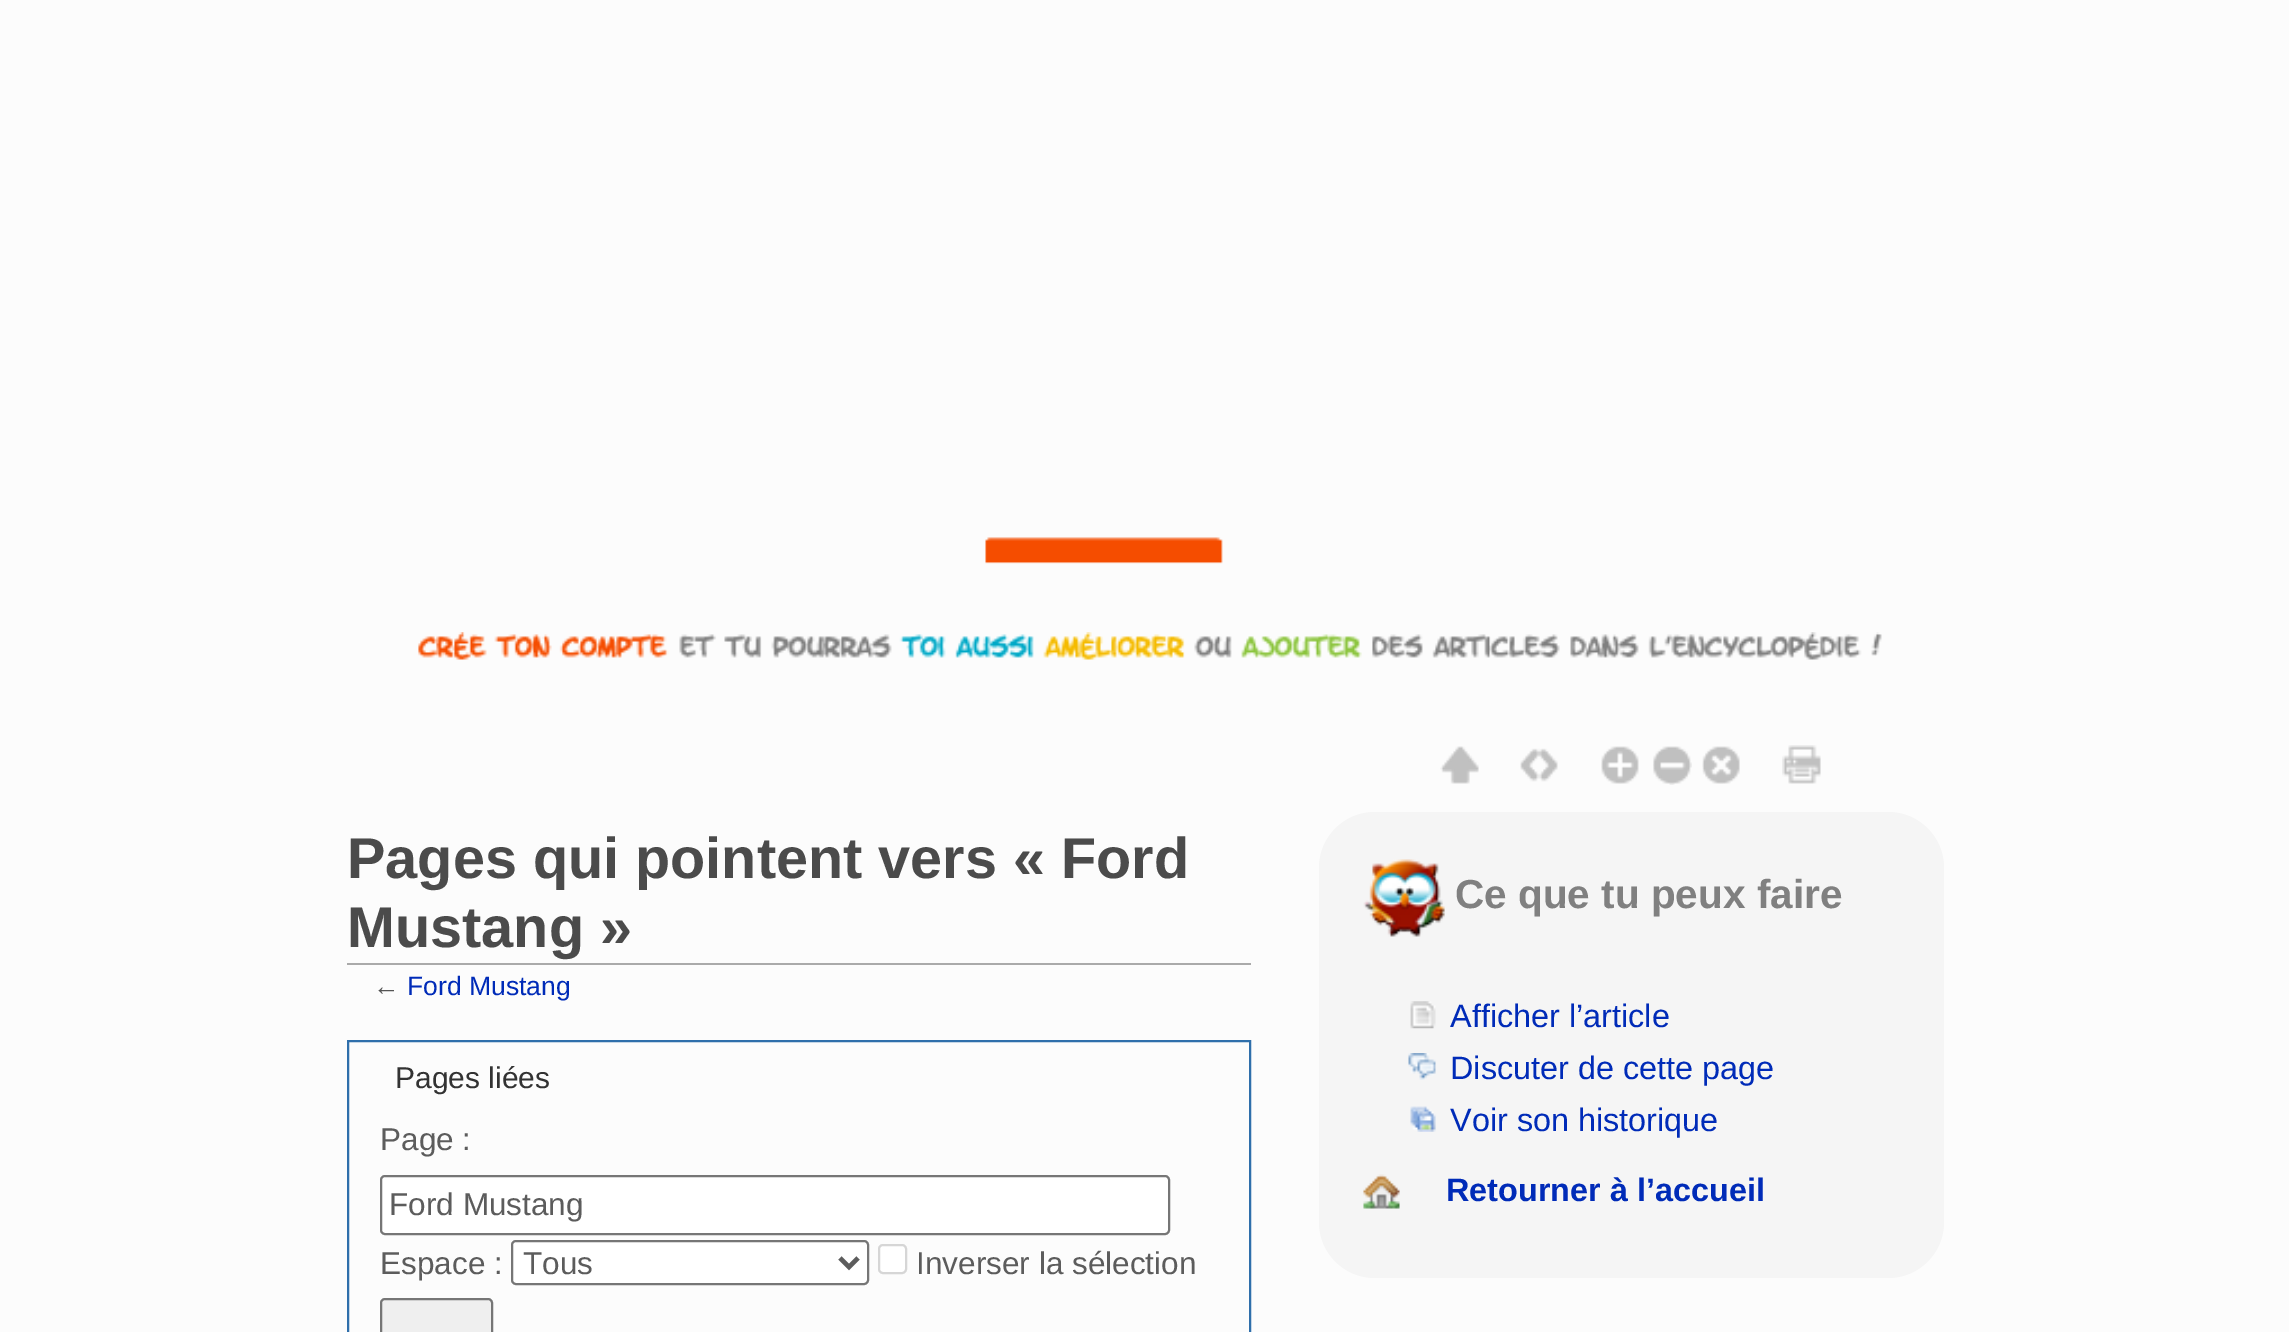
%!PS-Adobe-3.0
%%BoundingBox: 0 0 2289 1332
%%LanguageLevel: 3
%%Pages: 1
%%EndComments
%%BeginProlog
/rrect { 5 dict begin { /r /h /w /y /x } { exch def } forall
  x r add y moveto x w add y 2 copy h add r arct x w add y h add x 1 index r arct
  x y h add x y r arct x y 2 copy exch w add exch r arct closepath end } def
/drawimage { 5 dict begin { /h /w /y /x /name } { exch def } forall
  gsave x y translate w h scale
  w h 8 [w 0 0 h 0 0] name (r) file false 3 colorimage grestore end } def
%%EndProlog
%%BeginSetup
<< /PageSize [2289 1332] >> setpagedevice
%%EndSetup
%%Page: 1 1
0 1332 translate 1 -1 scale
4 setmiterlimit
0.988 setgray
0 0 2289 1332 rectfill
(images/1.raw) 985 537 238 27 drawimage
(images/2.raw) 418 632 1464 28 drawimage
0.667 setgray
347 963 904 2 rectfill
0.184 0.435 0.671 setrgbcolor
2 setlinewidth
348 1041 902 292 rectstroke
1 setgray
381 1176 788 58 4 rrect gsave fill grestore
0.463 setgray
stroke
1 setgray
512 1241 356 43 4 rrect gsave fill grestore
0.463 setgray
stroke
0.361 setgray
4.5 setlinewidth
newpath 840 1258 moveto 849 1267 lineto 858 1258 lineto stroke
1 setgray
879 1245 27 28 4 rrect gsave fill grestore
0.839 setgray
2 setlinewidth
stroke
0.937 setgray
381 1299 111 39 4 rrect gsave fill grestore
0.463 setgray
stroke
(images/3.raw) 1440 746 39 38 drawimage
(images/4.raw) 1520 748 38 34 drawimage
(images/5.raw) 1601 746 38 38 drawimage
(images/6.raw) 1653 746 39 39 drawimage
(images/7.raw) 1702 746 38 38 drawimage
(images/8.raw) 1782 745 39 39 drawimage
0.961 setgray
1319 812 625 466 56 rrect fill
(images/9.raw) 1363 859 82 78 drawimage
(images/10.raw) 1410 1001 26 28 drawimage
(images/11.raw) 1408 1053 28 27 drawimage
(images/12.raw) 1410 1106 26 26 drawimage
(images/13.raw) 1363 1174 37 35 drawimage
/LiberationSans-Bold [57.6 0 0 -57.6 0 0] selectfont
0.294 setgray
347 878 moveto (Pages qui pointent vers « Ford) show
347 947 moveto (Mustang ») show
/LiberationSans-Regular [26.5 0 0 -26.5 0 0] selectfont
0.329 setgray
373 995 moveto (←) show
0 0.169 0.722 setrgbcolor
407 995 moveto (Ford Mustang) show
/LiberationSans-Regular [30 0 0 -30 0 0] selectfont
0.2 setgray
395 1088 moveto (Pages liées) show
/LiberationSans-Regular [31.5 0 0 -31.5 0 0] selectfont
0.361 setgray
380 1150 moveto (Page :) show
389 1215 moveto (Ford Mustang) show
380 1274 moveto (Espace :) show
523 1274 moveto (Tous) show
916 1274 moveto (Inverser la sélection) show
/LiberationSans-Bold [40.5 0 0 -40.5 0 0] selectfont
0.502 setgray
1455 908 moveto (Ce que tu peux faire) show
/LiberationSans-Regular [32.4 0 0 -32.4 0 0] selectfont
0 0.169 0.722 setrgbcolor
1450 1027 moveto (Afficher l’article) show
1450 1079 moveto (Discuter de cette page) show
1450 1131 moveto (Voir son historique) show
/LiberationSans-Bold [32.4 0 0 -32.4 0 0] selectfont
1446 1201 moveto (Retourner à l’accueil) show
showpage
%%EOF
